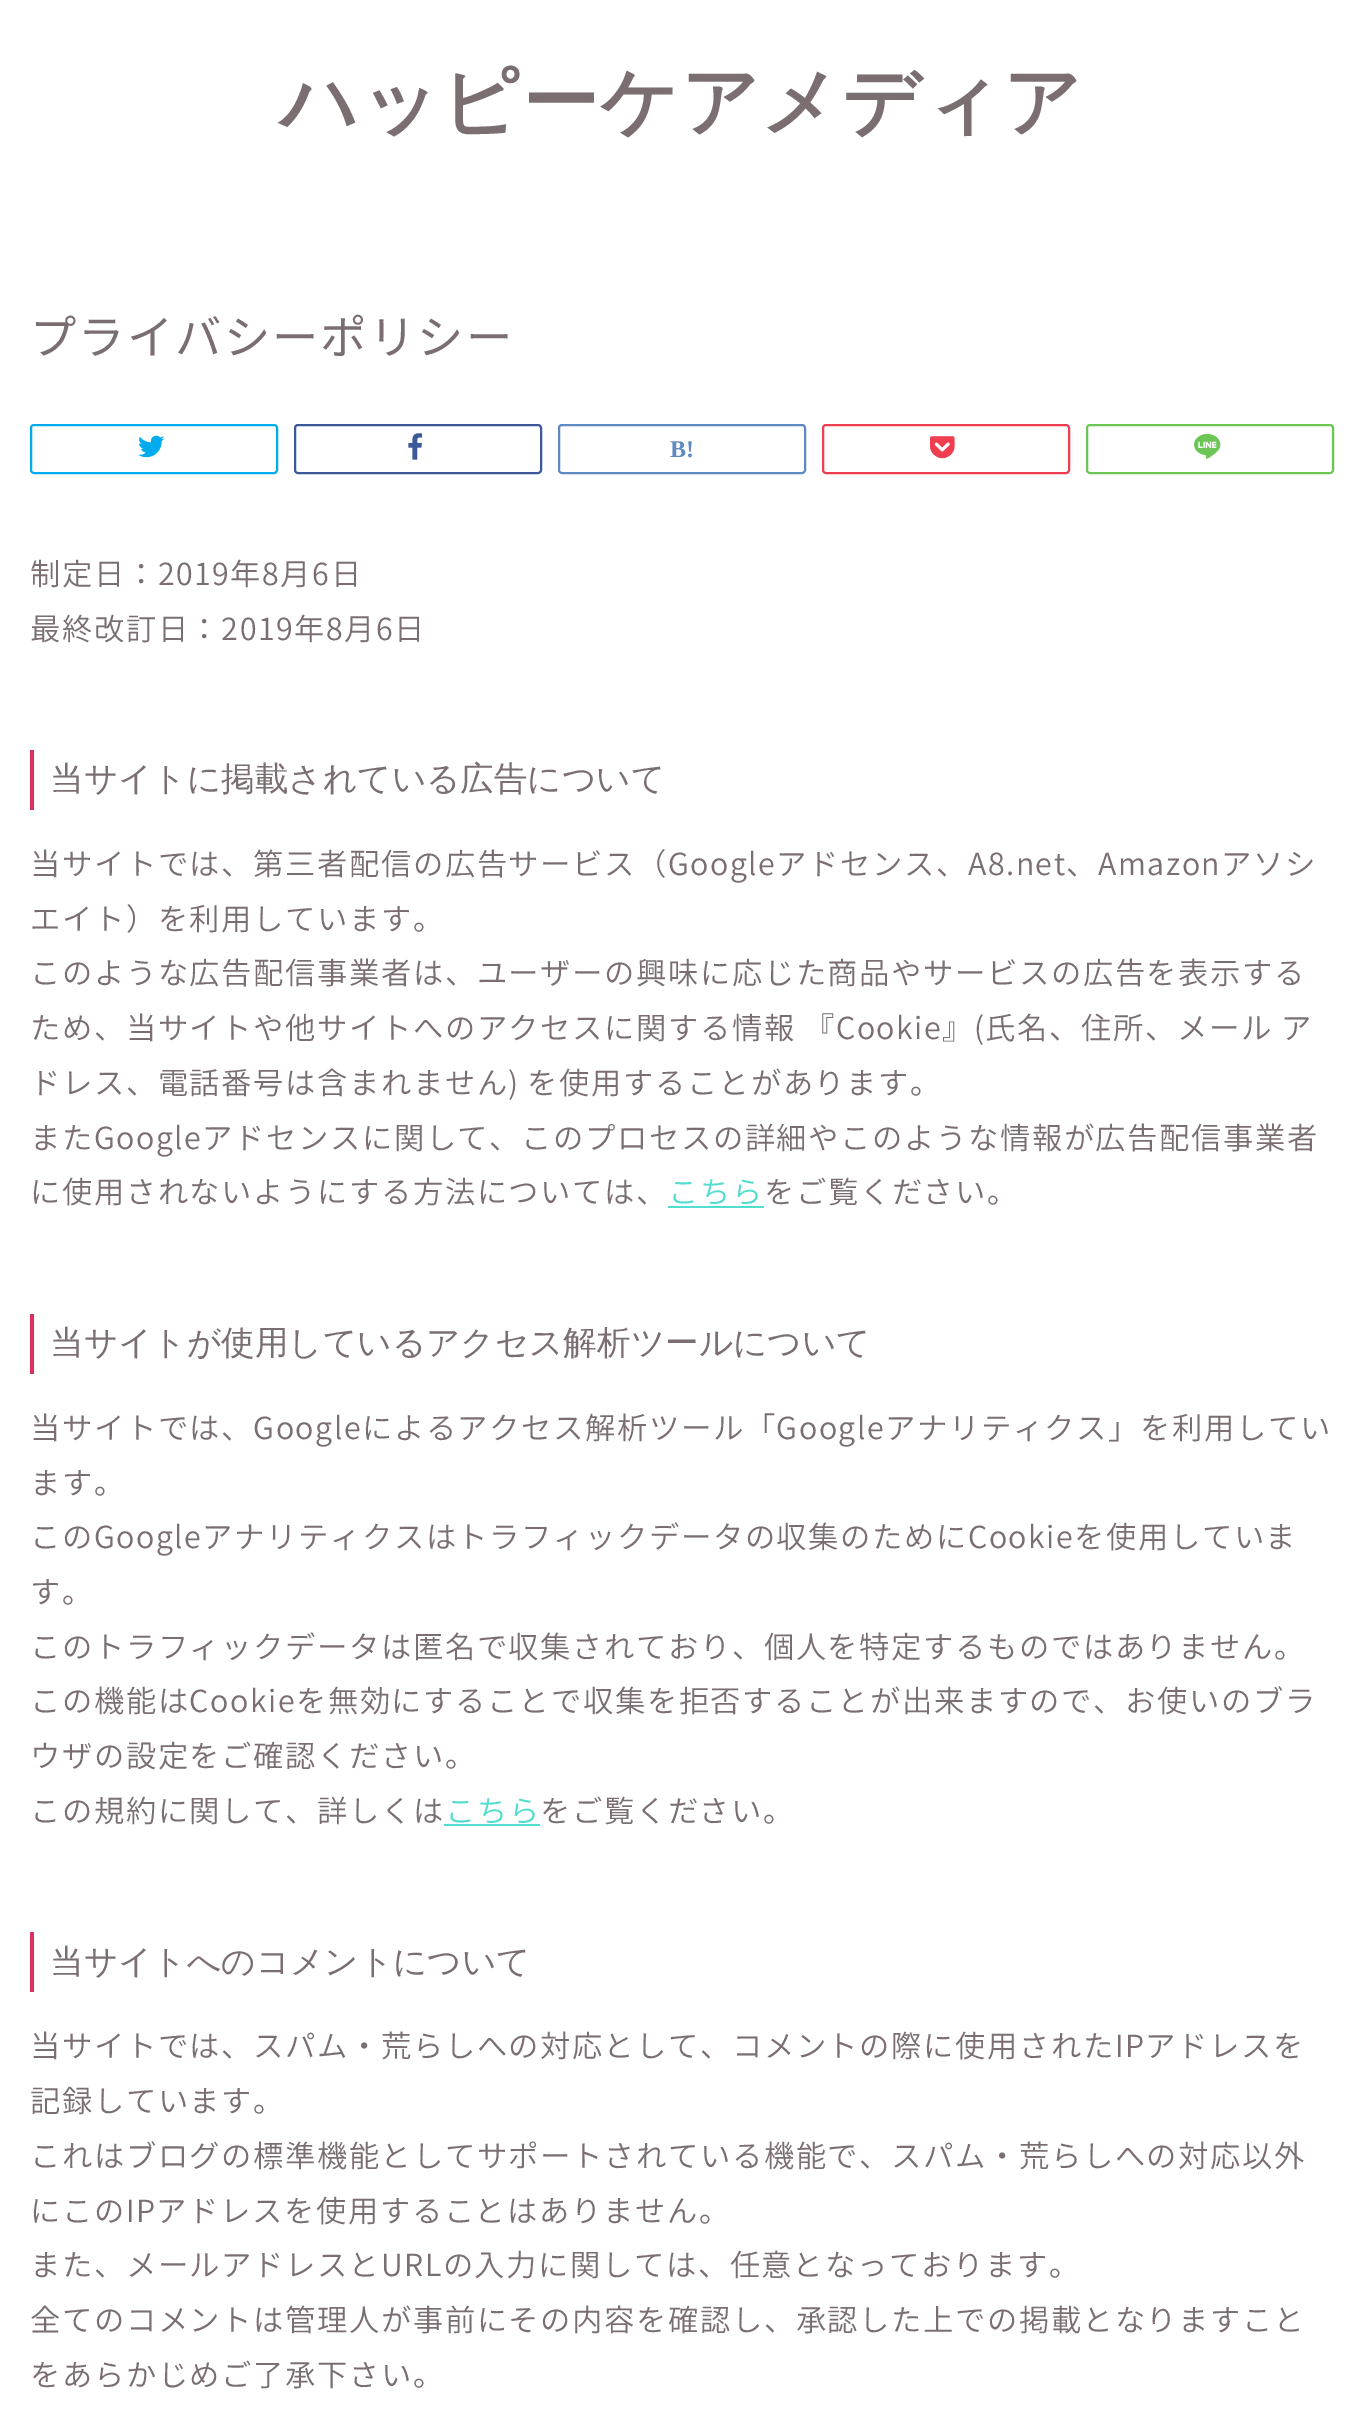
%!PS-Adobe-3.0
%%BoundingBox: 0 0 1363 2417
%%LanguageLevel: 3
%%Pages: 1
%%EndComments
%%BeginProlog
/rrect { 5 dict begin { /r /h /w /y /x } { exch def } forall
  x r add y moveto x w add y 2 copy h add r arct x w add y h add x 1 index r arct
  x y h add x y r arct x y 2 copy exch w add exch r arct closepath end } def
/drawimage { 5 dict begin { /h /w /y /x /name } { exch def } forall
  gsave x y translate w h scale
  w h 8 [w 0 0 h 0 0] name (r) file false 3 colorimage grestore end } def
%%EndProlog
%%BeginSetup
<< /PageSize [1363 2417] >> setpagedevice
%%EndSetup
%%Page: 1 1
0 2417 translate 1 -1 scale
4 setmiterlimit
1 setgray
0 0 1363 2417 rectfill
0 0.675 0.933 setrgbcolor
2 setlinewidth
31 425 246 48 3 rrect stroke
(images/1.raw) 138 435 27 23 drawimage
0.231 0.349 0.596 setrgbcolor
295 425 246 48 3 rrect stroke
(images/2.raw) 408 433 15 27 drawimage
0.365 0.541 0.757 setrgbcolor
559 425 246 48 3 rrect stroke
0.941 0.243 0.318 setrgbcolor
823 425 246 48 3 rrect stroke
(images/3.raw) 930 436 25 23 drawimage
0.424 0.776 0.333 setrgbcolor
1087 425 246 48 3 rrect stroke
(images/4.raw) 1194 433 27 26 drawimage
0.867 0.188 0.369 setrgbcolor
30 750 4 60 rectfill
0.322 0.867 0.812 setrgbcolor
668 1206 96 2 rectfill
0.867 0.188 0.369 setrgbcolor
30 1314 4 60 rectfill
0.322 0.867 0.812 setrgbcolor
444 1824 96 2 rectfill
0.867 0.188 0.369 setrgbcolor
30 1932 4 60 rectfill
/WenQuanYiZenHei-Bold [76.75 0 0 -76.75 0 0] selectfont
0.478 0.431 0.443 setrgbcolor
280 128 moveto 2 0 (ハッピーケアメディア) ashow
/NotoSansJP-Regular [46.4 0 0 -46.4 0 0] selectfont
30 354 moveto 2 0 (プライバシーポリシー) ashow
/LiberationSerif-Bold [24 0 0 -24 0 0] selectfont
0.365 0.541 0.757 setrgbcolor
670 457 moveto (B!) show
/NotoSansJP-Light [30.4 0 0 -30.4 0 0] selectfont
0.478 0.431 0.443 setrgbcolor
30 585 moveto 1.5 0 (制定日：2019年8月6日) ashow
30 640 moveto 1.5 0 (最終改訂日：2019年8月6日) ashow
/WenQuanYiZenHei-Medium [33.6 0 0 -33.6 0 0] selectfont
50 790 moveto (当サイトに掲載されている広告について) show
/NotoSansJP-Light [30.4 0 0 -30.4 0 0] selectfont
30 875 moveto 1.5 0 (当サイトでは、第三者配信の広告サービス（Googleアドセンス、A8.net、Amazonアソシ) ashow
30 930 moveto 1.5 0 (エイト）を利用しています。) ashow
30 984 moveto 1.5 0 (このような広告配信事業者は、ユーザーの興味に応じた商品やサービスの広告を表示する) ashow
30 1039 moveto 1.5 0 (ため、当サイトや他サイトへのアクセスに関する情報 『Cookie』\(氏名、住所、メール ア) ashow
30 1094 moveto -1 0 32 1.5 0 (ドレス、電話番号は含まれません\) を使用することがあります。) awidthshow
30 1149 moveto 1.5 0 (またGoogleアドセンスに関して、このプロセスの詳細やこのような情報が広告配信事業者) ashow
30 1203 moveto 1.5 0 (に使用されないようにする方法については、) ashow
0.322 0.867 0.812 setrgbcolor
668 1203 moveto 1.5 0 (こちら) ashow
0.478 0.431 0.443 setrgbcolor
764 1203 moveto 1.5 0 (をご覧ください。) ashow
/WenQuanYiZenHei-Medium [33.6 0 0 -33.6 0 0] selectfont
50 1354 moveto (当サイトが使用しているアクセス解析ツールについて) show
/NotoSansJP-Light [30.4 0 0 -30.4 0 0] selectfont
30 1439 moveto 1.5 0 (当サイトでは、Googleによるアクセス解析ツール「Googleアナリティクス」を利用してい) ashow
30 1494 moveto 1.5 0 (ます。) ashow
30 1548 moveto 1.5 0 (このGoogleアナリティクスはトラフィックデータの収集のためにCookieを使用していま) ashow
30 1603 moveto 1.5 0 (す。) ashow
30 1658 moveto 1.5 0 (このトラフィックデータは匿名で収集されており、個人を特定するものではありません。) ashow
30 1712 moveto 1.5 0 (この機能はCookieを無効にすることで収集を拒否することが出来ますので、お使いのブラ) ashow
30 1767 moveto 1.5 0 (ウザの設定をご確認ください。) ashow
30 1822 moveto 1.5 0 (この規約に関して、詳しくは) ashow
0.322 0.867 0.812 setrgbcolor
445 1822 moveto 1.5 0 (こちら) ashow
0.478 0.431 0.443 setrgbcolor
540 1822 moveto 1.5 0 (をご覧ください。) ashow
/WenQuanYiZenHei-Medium [33.6 0 0 -33.6 0 0] selectfont
50 1973 moveto (当サイトへのコメントについて) show
/NotoSansJP-Light [30.4 0 0 -30.4 0 0] selectfont
30 2057 moveto 1.5 0 (当サイトでは、スパム・荒らしへの対応として、コメントの際に使用されたIPアドレスを) ashow
30 2112 moveto 1.5 0 (記録しています。) ashow
30 2167 moveto 1.5 0 (これはブログの標準機能としてサポートされている機能で、スパム・荒らしへの対応以外) ashow
30 2222 moveto 1.5 0 (にこのIPアドレスを使用することはありません。) ashow
30 2276 moveto 1.5 0 (また、メールアドレスとURLの入力に関しては、任意となっております。) ashow
30 2331 moveto 1.5 0 (全てのコメントは管理人が事前にその内容を確認し、承認した上での掲載となりますこと) ashow
30 2386 moveto 1.5 0 (をあらかじめご了承下さい。) ashow
showpage
%%EOF
